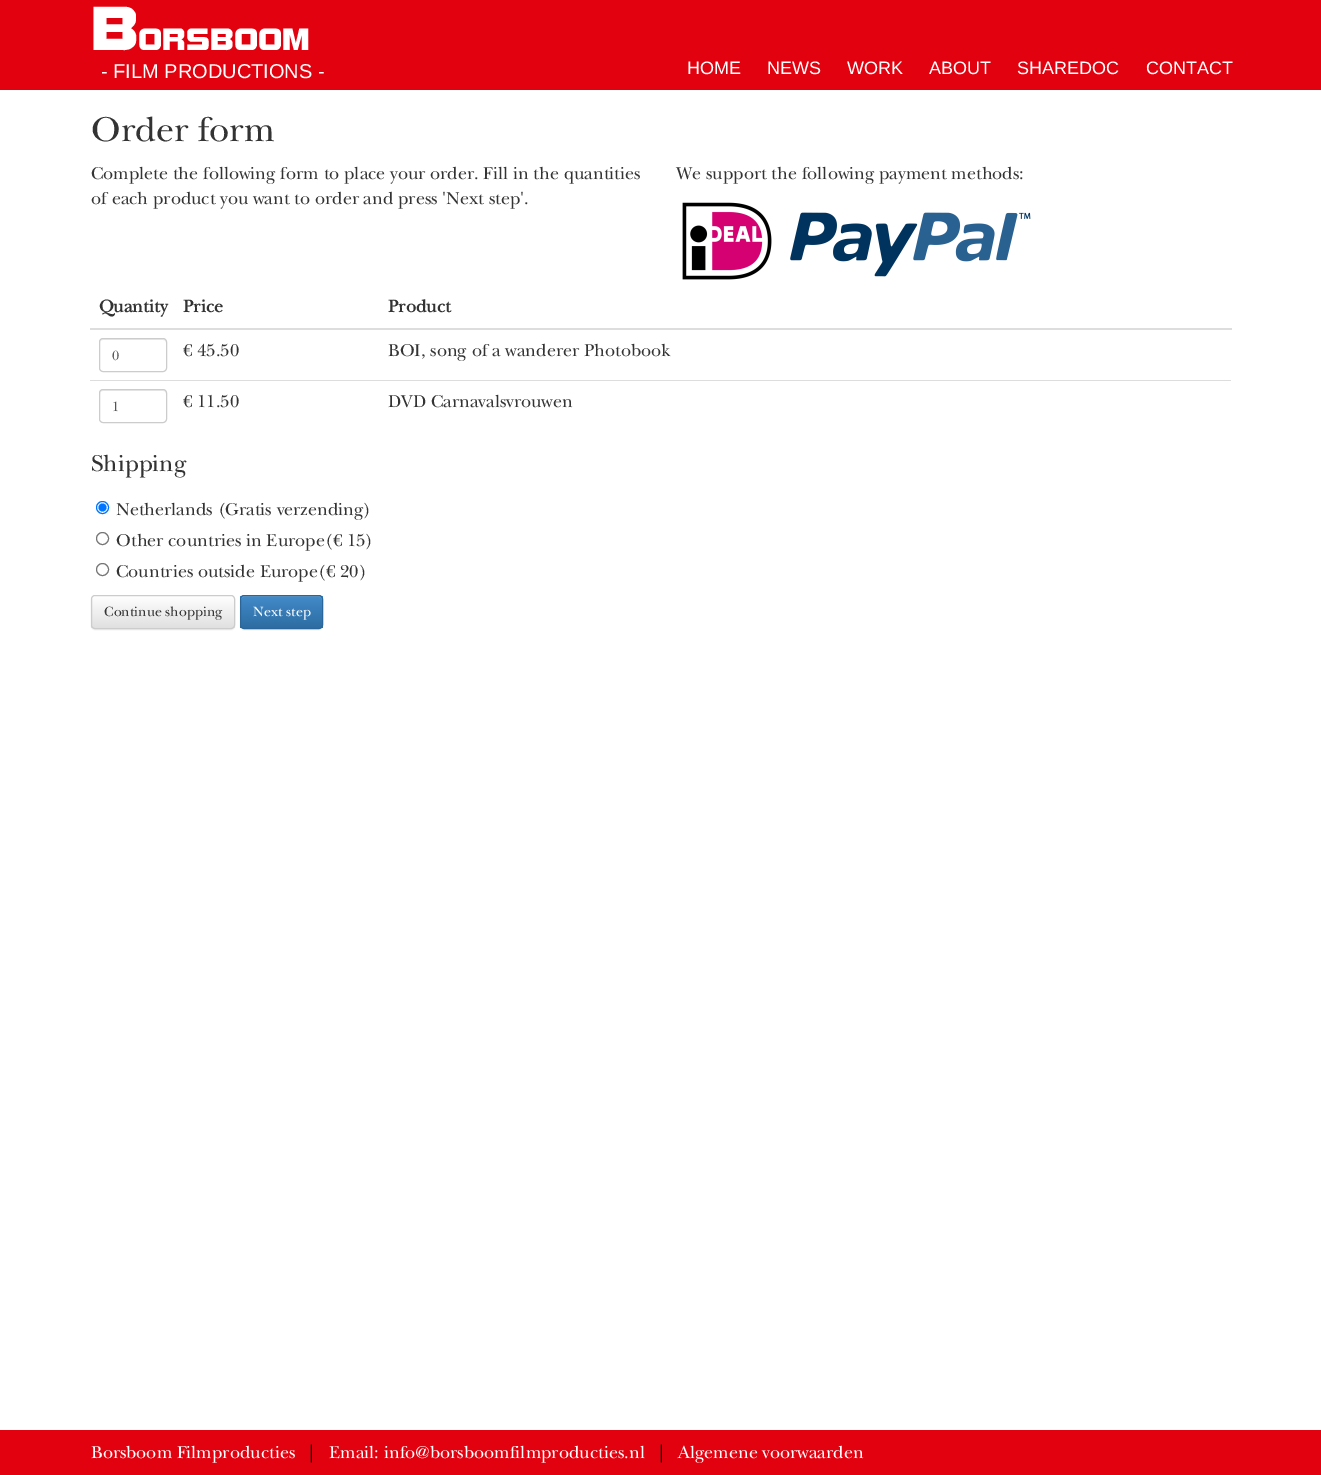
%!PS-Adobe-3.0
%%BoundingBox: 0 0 1321 1475
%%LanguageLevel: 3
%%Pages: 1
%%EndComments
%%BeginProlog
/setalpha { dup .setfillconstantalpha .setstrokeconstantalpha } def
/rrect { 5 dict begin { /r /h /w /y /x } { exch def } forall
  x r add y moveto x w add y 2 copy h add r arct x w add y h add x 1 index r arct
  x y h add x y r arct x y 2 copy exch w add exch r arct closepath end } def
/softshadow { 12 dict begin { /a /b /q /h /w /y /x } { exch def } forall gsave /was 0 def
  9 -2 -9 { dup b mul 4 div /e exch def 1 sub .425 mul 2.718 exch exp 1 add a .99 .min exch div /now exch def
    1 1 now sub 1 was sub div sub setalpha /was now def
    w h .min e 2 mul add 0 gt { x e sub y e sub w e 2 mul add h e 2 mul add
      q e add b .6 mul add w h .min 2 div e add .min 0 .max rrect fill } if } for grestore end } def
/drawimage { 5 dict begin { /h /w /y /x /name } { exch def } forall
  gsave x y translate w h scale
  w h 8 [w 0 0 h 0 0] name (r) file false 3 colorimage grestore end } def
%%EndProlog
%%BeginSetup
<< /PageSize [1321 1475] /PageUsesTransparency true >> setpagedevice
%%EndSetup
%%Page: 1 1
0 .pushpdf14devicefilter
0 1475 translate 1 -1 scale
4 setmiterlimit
1 setgray
0 0 1321 1475 rectfill
0.886 0.008 0.059 setrgbcolor
0 0 1321 90 rectfill
(images/1.raw) 682 202 90 78 drawimage
(images/2.raw) 790 212 241 65 drawimage
0.867 setgray
90 328 1142 2 rectfill
0.925 setgray
newpath 103 340 moveto 163 340 lineto 165 340 166 341 166 343 curveto 166 336 157 339 153 339 curveto 113 339 lineto 109 339 100 336 100 343 curveto 100 341 101 340 103 340 curveto closepath fill
0.8 setgray
99.5 338.5 67 33 3.5 rrect stroke
0.925 setgray
newpath 103 391 moveto 163 391 lineto 165 391 166 392 166 394 curveto 166 387 157 390 153 390 curveto 113 390 lineto 109 390 100 387 100 394 curveto 100 392 101 391 103 391 curveto closepath fill
0.8 setgray
99.5 389.5 67 33 3.5 rrect stroke
0.867 setgray
90 380 1141 1 rectfill
0 0.459 1 setrgbcolor
newpath 102.5 507.5 6 0 360 arc closepath stroke
newpath 102.5 507.5 4 0 360 arc closepath fill
0.463 setgray
newpath 102.5 538.5 6 0 360 arc closepath stroke
newpath 102.5 569.5 6 0 360 arc closepath stroke
0 setgray
91 596 144 34 4 0.5 0.07 softshadow
gsave
91 595 144 34 4 rrect clip newpath
gsave newpath 91 596 moveto 235 596 lineto 235 628 lineto 91 628 lineto closepath clip newpath
<< /ShadingType 2 /ColorSpace /DeviceRGB /Coords [163 596 163 628] /Extend [true true] /Function << /FunctionType 2 /Domain [0 1] /C0 [1 1 1] /C1 [0.878 0.878 0.878] /N 1 >> >> shfill grestore
grestore
0.8 setgray
91.5 595.5 143 33 3.5 rrect stroke
0 setgray
240 596 83 34 4 0.5 0.07 softshadow
gsave
240 595 83 34 4 rrect clip newpath
gsave newpath 240 596 moveto 323 596 lineto 323 628 lineto 240 628 lineto closepath clip newpath
<< /ShadingType 2 /ColorSpace /DeviceRGB /Coords [282 596 282 628] /Extend [true true] /Function << /FunctionType 2 /Domain [0 1] /C0 [0.259 0.545 0.792] /C1 [0.176 0.424 0.635] /N 1 >> >> shfill grestore
grestore
0.369 0.612 0.82 setrgbcolor
newpath 244 597 moveto 319 597 lineto 321 597 322 598 322 600 curveto 322 593 310 596 306 596 curveto 256 596 lineto 253 596 241 593 241 600 curveto 241 598 242 597 244 597 curveto closepath fill
0.169 0.4 0.604 setrgbcolor
240.5 595.5 82 33 3.5 rrect stroke
0.886 0.008 0.059 setrgbcolor
0 1430 1321 45 rectfill
/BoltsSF-Regular [60 0 0 -60 0 0] selectfont
1 setgray
91 50 moveto (B) show
/BoltsSF-Regular [30 0 0 -30 0 0] selectfont
138 50 moveto (ORSBOOM) show
/LiberationSans-Regular [20 0 0 -20 0 0] selectfont
101 78 moveto (- FILM PRODUCTIONS -) show
/LiberationSans-Regular [18 0 0 -18 0 0] selectfont
687 74 moveto (HOME) show
767 74 moveto (NEWS) show
847 74 moveto (WORK) show
929 74 moveto (ABOUT) show
1017 74 moveto (SHAREDOC) show
1146 74 moveto (CONTACT) show
/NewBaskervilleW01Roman-Regular [36 0 0 -36 0 0] selectfont
0.2 setgray
91 141 moveto (Order form) show
/NewBaskervilleW01Roman-Regular [18 0 0 -18 0 0] selectfont
91 179 moveto (Complete the following form to place your order. Fill in the quantities) show
91 204 moveto (of each product you want to order and press 'Next step'.) show
676 179 moveto (We support the following payment methods:) show
/NewBaskervilleW01Roman-Bold [18 0 0 -18 0 0] selectfont
99 312 moveto (Quantity) show
183 312 moveto (Price) show
388 312 moveto (Product) show
/NewBaskervilleW01Roman-Regular [14 0 0 -14 0 0] selectfont
0.333 setgray
112 360 moveto (0) show
/NewBaskervilleW01Roman-Regular [18 0 0 -18 0 0] selectfont
0.2 setgray
183 356 moveto (€ 45.50) show
388 356 moveto (BOI, song of a wanderer Photobook) show
/NewBaskervilleW01Roman-Regular [14 0 0 -14 0 0] selectfont
0.333 setgray
112 411 moveto (1) show
/NewBaskervilleW01Roman-Regular [18 0 0 -18 0 0] selectfont
0.2 setgray
183 407 moveto (€ 11.50) show
388 407 moveto (DVD Carnavalsvrouwen) show
/NewBaskervilleW01Roman-Regular [24 0 0 -24 0 0] selectfont
91 471 moveto (Shipping) show
/NewBaskervilleW01Roman-Regular [18 0 0 -18 0 0] selectfont
116 515 moveto (Netherlands \(Gratis verzending\)) show
116 546 moveto (Other countries in Europe\(€ 15\)) show
116 577 moveto (Countries outside Europe\(€ 20\)) show
/NewBaskervilleW01Roman-Regular [14 0 0 -14 0 0] selectfont
104 616 moveto (Continue shopping) show
1 setgray
253 616 moveto (Next step) show
/NewBaskervilleW01Roman-Regular [18 0 0 -18 0 0] selectfont
91 1458 moveto (Borsboom Filmproducties) show
0 setgray
309 1458 moveto (|) show
1 setgray
329 1458 moveto (Email: info@borsboomfilmproducties.nl) show
0 setgray
659 1458 moveto (|) show
1 setgray
678 1458 moveto (Algemene voorwaarden) show
.poppdf14devicefilter showpage
%%EOF
